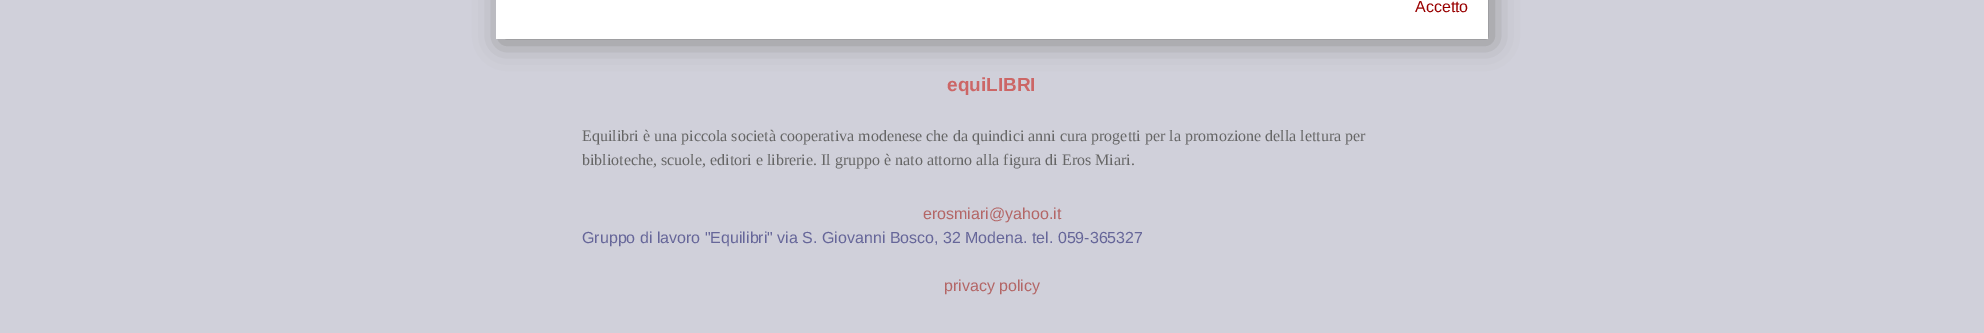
%!PS-Adobe-3.0
%%BoundingBox: 0 0 1984 333
%%LanguageLevel: 3
%%Pages: 1
%%EndComments
%%BeginProlog
/setalpha { dup .setfillconstantalpha .setstrokeconstantalpha } def
/rrect { 5 dict begin { /r /h /w /y /x } { exch def } forall
  x r add y moveto x w add y 2 copy h add r arct x w add y h add x 1 index r arct
  x y h add x y r arct x y 2 copy exch w add exch r arct closepath end } def
/softshadow { 12 dict begin { /a /b /q /h /w /y /x } { exch def } forall gsave /was 0 def
  9 -2 -9 { dup b mul 4 div /e exch def 1 sub .425 mul 2.718 exch exp 1 add a .99 .min exch div /now exch def
    1 1 now sub 1 was sub div sub setalpha /was now def
    w h .min e 2 mul add 0 gt { x e sub y e sub w e 2 mul add h e 2 mul add
      q e add b .6 mul add w h .min 2 div e add .min 0 .max rrect fill } if } for grestore end } def
%%EndProlog
%%BeginSetup
<< /PageSize [1984 333] /PageUsesTransparency true >> setpagedevice
%%EndSetup
%%Page: 1 1
0 .pushpdf14devicefilter
0 333 translate 1 -1 scale
4 setmiterlimit
0.816 0.816 0.855 setrgbcolor
0 0 1984 333 rectfill
0.533 setgray
500 -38 992 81 0 12.5 1 softshadow
1 setgray
496 0 992 39 rectfill
/LiberationSans-Regular [16 0 0 -16 0 0] selectfont
0.6 0 0 setrgbcolor
1415 12 moveto (Accetto) show
/LiberationSans-Bold [19 0 0 -19 0 0] selectfont
0.8 0.4 0.4 setrgbcolor
947 91 moveto (equiLIBRI) show
/LiberationSerif-Regular [16 0 0 -16 0 0] selectfont
0.4 setgray
582 141 moveto (Equilibri è una piccola società cooperativa modenese che da quindici anni cura progetti per la promozione della lettura per) show
582 165 moveto (biblioteche, scuole, editori e librerie. Il gruppo è nato attorno alla figura di Eros Miari.) show
/LiberationSans-Regular [16 0 0 -16 0 0] selectfont
0.702 0.4 0.4 setrgbcolor
923 219 moveto (erosmiari@yahoo.it) show
0.4 0.4 0.6 setrgbcolor
582 243 moveto (Gruppo di lavoro "Equilibri" via S. Giovanni Bosco, 32 Modena. tel. 059-365327) show
0.702 0.4 0.4 setrgbcolor
944 291 moveto (privacy policy) show
.poppdf14devicefilter showpage
%%EOF
